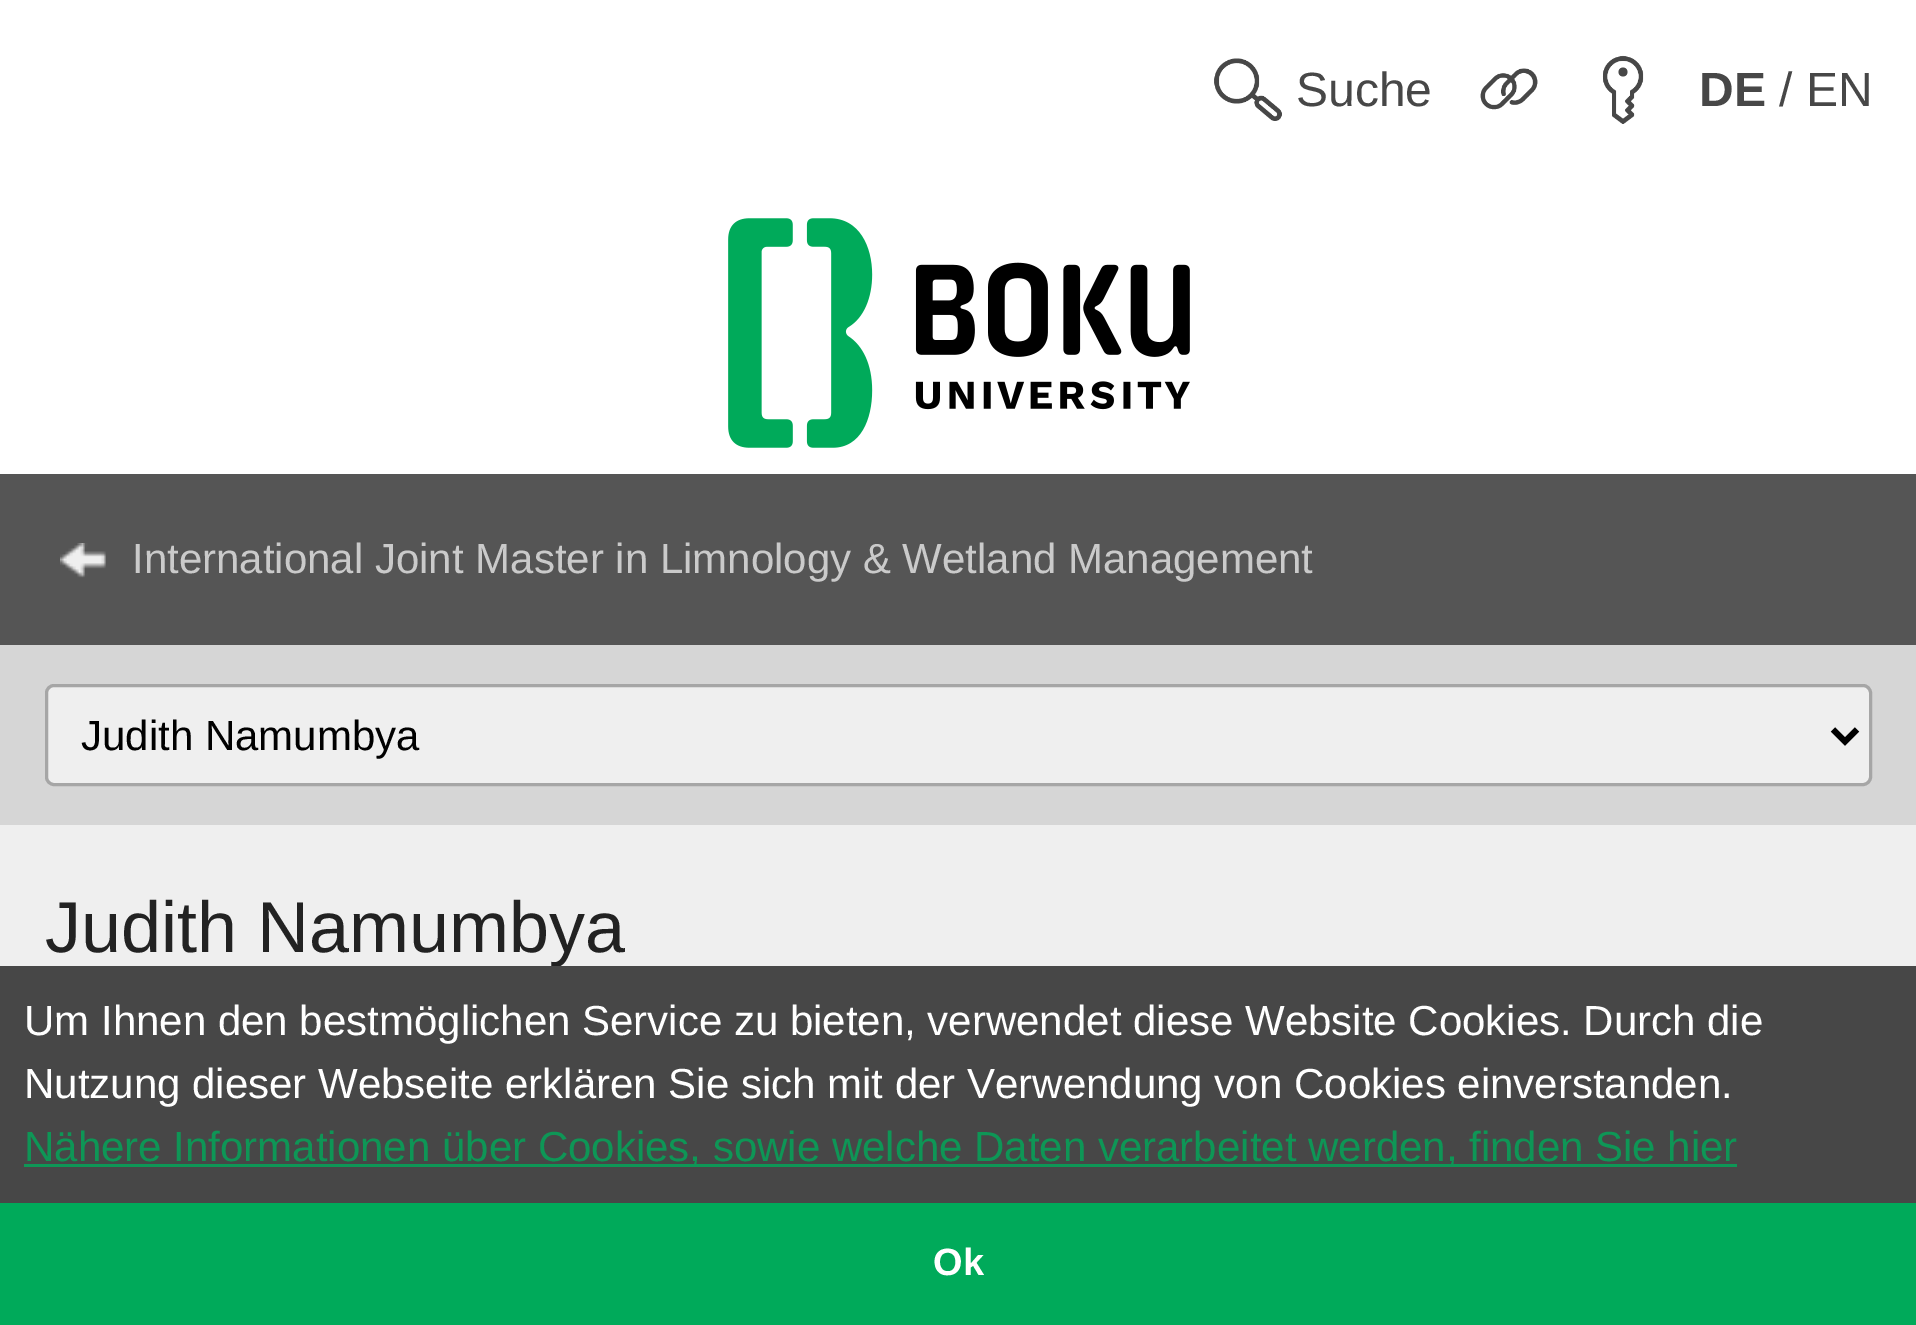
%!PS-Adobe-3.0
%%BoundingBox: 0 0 1916 1325
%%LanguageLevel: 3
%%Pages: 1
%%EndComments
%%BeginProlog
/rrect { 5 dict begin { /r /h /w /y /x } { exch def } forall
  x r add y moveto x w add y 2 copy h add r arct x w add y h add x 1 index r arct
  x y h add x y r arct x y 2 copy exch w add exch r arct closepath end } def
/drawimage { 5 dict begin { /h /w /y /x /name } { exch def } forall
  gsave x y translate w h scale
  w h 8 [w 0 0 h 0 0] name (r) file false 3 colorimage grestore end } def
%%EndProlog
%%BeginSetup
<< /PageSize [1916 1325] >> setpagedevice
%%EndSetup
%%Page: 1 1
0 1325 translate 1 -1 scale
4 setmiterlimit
0.937 setgray
0 0 1916 1325 rectfill
1 setgray
0 0 1916 474 rectfill
(images/1.raw) 1214 58 68 63 drawimage
(images/2.raw) 1480 68 58 42 drawimage
(images/3.raw) 1602 55 42 69 drawimage
(images/4.raw) 728 218 462 230 drawimage
0.839 setgray
0 645 1916 180 rectfill
0.333 setgray
0 474 1916 171 rectfill
(images/5.raw) 60 543 46 35 drawimage
0.937 setgray
46.5 685.5 1824 99 7.5 rrect gsave fill grestore
0.651 setgray
3 setlinewidth
stroke
0 setgray
6 setlinewidth
newpath 1833 729.5 moveto 1845 741.5 lineto 1857 729.5 lineto stroke
0 0.667 0.353 setrgbcolor
0 1203 1916 122 rectfill
/LiberationSans-Regular [48 0 0 -48 0 0] selectfont
0.278 setgray
1296 106 moveto (Suche) show
/LiberationSans-Bold [48 0 0 -48 0 0] selectfont
1699 106 moveto (DE) show
/LiberationSans-Regular [48 0 0 -48 0 0] selectfont
1779 106 moveto (/ EN) show
/LiberationSans-Regular [42 0 0 -42 0 0] selectfont
0.792 setgray
132 573 moveto (International Joint Master in Limnology & Wetland Management) show
0 setgray
81 750 moveto (Judith Namumbya) show
/LiberationSans-Regular [72 0 0 -72 0 0] selectfont
0.133 setgray
45 952 moveto (Judith Namumbya) show
0.278 setgray
0 966 1916 237 rectfill
/LiberationSans-Regular [42 0 0 -42 0 0] selectfont
1 setgray
24 1035 moveto (Um Ihnen den bestmöglichen Service zu bieten, verwendet diese Website Cookies. Durch die) show
24 1098 moveto (Nutzung dieser Webseite erklären Sie sich mit der Verwendung von Cookies einverstanden.) show
0.055 0.588 0.337 setrgbcolor
24 1164 1713 3 rectfill
24 1161 moveto (Nähere Informationen über Cookies, sowie welche Daten verarbeitet werden, finden Sie hier) show
/LiberationSans-Bold [38 0 0 -38 0 0] selectfont
1 setgray
933 1275 moveto (Ok) show
showpage
%%EOF
